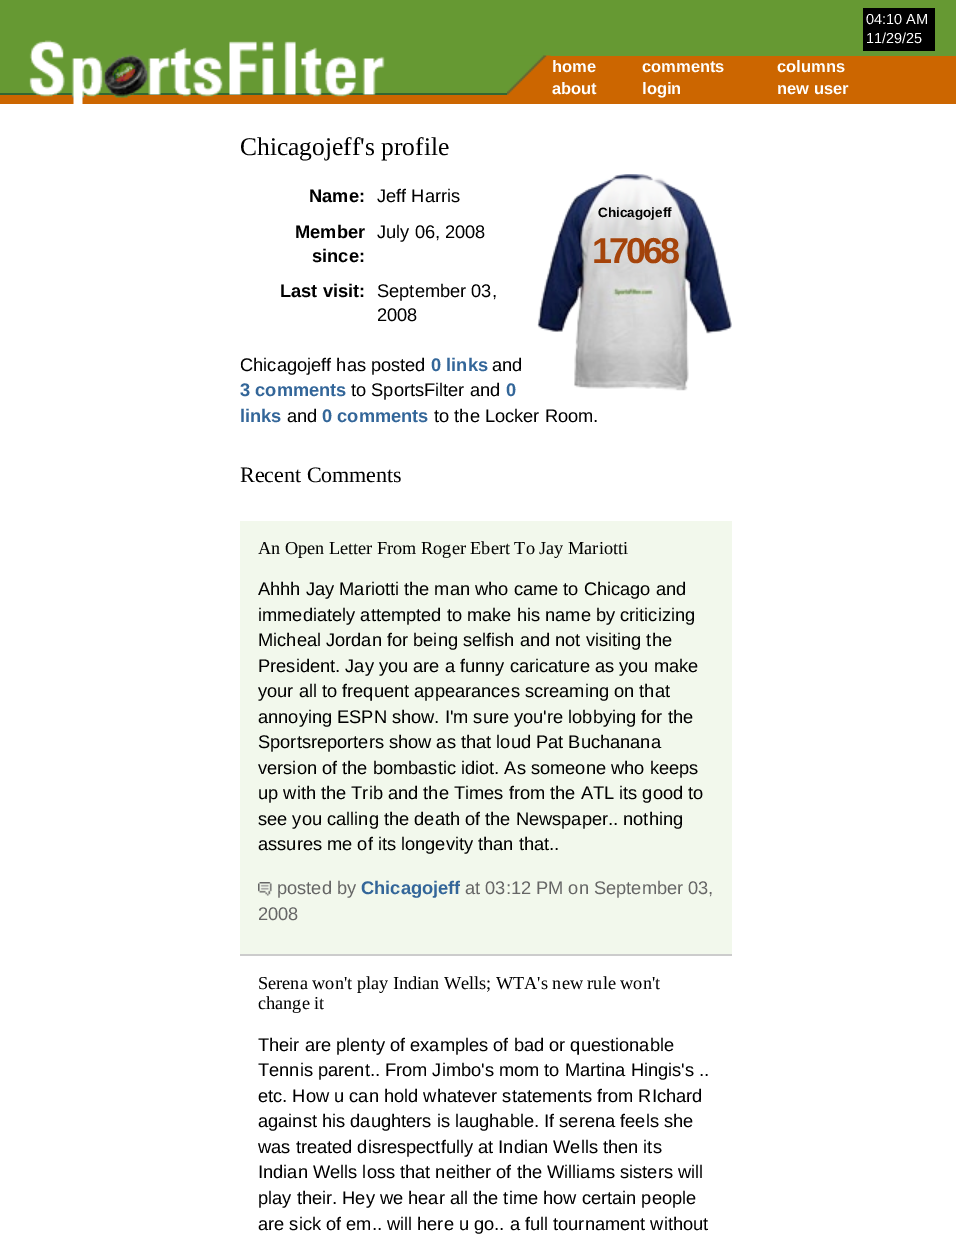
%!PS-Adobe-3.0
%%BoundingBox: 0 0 956 1244
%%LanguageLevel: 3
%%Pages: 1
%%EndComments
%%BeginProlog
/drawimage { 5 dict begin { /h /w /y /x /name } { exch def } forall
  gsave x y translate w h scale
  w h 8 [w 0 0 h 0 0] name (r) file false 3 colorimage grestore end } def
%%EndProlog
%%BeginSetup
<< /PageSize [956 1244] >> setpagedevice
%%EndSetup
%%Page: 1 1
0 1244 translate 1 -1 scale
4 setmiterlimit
0.4 0.6 0.2 setrgbcolor
0 0 956 1244 rectfill
0.2 0.4 0.2 setrgbcolor
0 93 507 2 rectfill
0 setgray
863 8 72 43 rectfill
0.8 0.4 0 setrgbcolor
0 95 956 9 rectfill
(images/1.raw) 29 40 356 64 drawimage
507 56 449 39 rectfill
(images/2.raw) 507 55 44 40 drawimage
1 setgray
0 104 956 1140 rectfill
(images/3.raw) 537 174 195 217 drawimage
0.949 0.973 0.925 setrgbcolor
240 521 492 433 rectfill
0.8 setgray
240 954 492 2 rectfill
(images/4.raw) 258 882 14 14 drawimage
/LiberationSans-Regular [14.5 0 0 -14.5 0 0] selectfont
1 setgray
866 24 moveto (04:10 AM) show
866 43 moveto (11/29/25) show
/LiberationSans-Bold [16.5 0 0 -16.5 0 0] selectfont
552 72 moveto (home) show
642 72 moveto (comments) show
777 72 moveto (columns) show
552 94 moveto (about) show
642 94 moveto (login) show
777 94 moveto (new user) show
/LiberationSerif-Regular [25.5 0 0 -25.5 0 0] selectfont
0 setgray
240 155 moveto (Chicagojeff's profile) show
/LiberationSans-Bold [18.25 0 0 -18.25 0 0] selectfont
309 202 moveto (Name:) show
/LiberationSans-Regular [18.25 0 0 -18.25 0 0] selectfont
377 202 moveto (Jeff Harris) show
/LiberationSans-Bold [18.25 0 0 -18.25 0 0] selectfont
295 238 moveto (Member) show
312 262 moveto (since:) show
/LiberationSans-Regular [18.25 0 0 -18.25 0 0] selectfont
377 238 moveto (July 06, 2008) show
/LiberationSans-Bold [18.25 0 0 -18.25 0 0] selectfont
280 297 moveto (Last visit:) show
/LiberationSans-Regular [18.25 0 0 -18.25 0 0] selectfont
377 297 moveto (September 03,) show
377 321 moveto (2008) show
/LiberationSans-Bold [13.5 0 0 -13.5 0 0] selectfont
598 217 moveto (Chicagojeff) show
/LiberationSans-Bold [36 0 0 -36 0 0] selectfont
0.647 0.267 0.043 setrgbcolor
592 263 moveto -3 0 (17068) ashow
/LiberationSans-Regular [18.25 0 0 -18.25 0 0] selectfont
0 setgray
240 371 moveto (Chicagojeff has posted) show
/LiberationSans-Bold [18.25 0 0 -18.25 0 0] selectfont
0.2 0.4 0.6 setrgbcolor
431 371 moveto (0 links) show
/LiberationSans-Regular [18.25 0 0 -18.25 0 0] selectfont
0 setgray
492 371 moveto (and) show
/LiberationSans-Bold [18.25 0 0 -18.25 0 0] selectfont
0.2 0.4 0.6 setrgbcolor
240 396 moveto (3 comments) show
/LiberationSans-Regular [18.25 0 0 -18.25 0 0] selectfont
0 setgray
351 396 moveto (to SportsFilter and) show
/LiberationSans-Bold [18.25 0 0 -18.25 0 0] selectfont
0.2 0.4 0.6 setrgbcolor
506 396 moveto (0) show
240 422 moveto (links) show
/LiberationSans-Regular [18.25 0 0 -18.25 0 0] selectfont
0 setgray
287 422 moveto (and) show
/LiberationSans-Bold [18.25 0 0 -18.25 0 0] selectfont
0.2 0.4 0.6 setrgbcolor
322 422 moveto (0 comments) show
/LiberationSans-Regular [18.25 0 0 -18.25 0 0] selectfont
0 setgray
434 422 moveto (to the Locker Room.) show
/LiberationSerif-Regular [22 0 0 -22 0 0] selectfont
240 482 moveto (Recent Comments) show
/LiberationSerif-Regular [18.25 0 0 -18.25 0 0] selectfont
258 554 moveto (An Open Letter From Roger Ebert To Jay Mariotti) show
/LiberationSans-Regular [18.25 0 0 -18.25 0 0] selectfont
258 595 moveto (Ahhh Jay Mariotti the man who came to Chicago and) show
258 621 moveto (immediately attempted to make his name by criticizing) show
258 646 moveto (Micheal Jordan for being selfish and not visiting the) show
258 672 moveto (President. Jay you are a funny caricature as you make) show
258 697 moveto (your all to frequent appearances screaming on that) show
258 723 moveto (annoying ESPN show. I'm sure you're lobbying for the) show
258 748 moveto (Sportsreporters show as that loud Pat Buchanana) show
258 774 moveto (version of the bombastic idiot. As someone who keeps) show
258 799 moveto (up with the Trib and the Times from the ATL its good to) show
258 825 moveto (see you calling the death of the Newspaper.. nothing) show
258 850 moveto (assures me of its longevity than that..) show
0.4 setgray
277 894 moveto (posted by) show
/LiberationSans-Bold [18.25 0 0 -18.25 0 0] selectfont
0.2 0.4 0.6 setrgbcolor
361 894 moveto (Chicagojeff) show
/LiberationSans-Regular [18.25 0 0 -18.25 0 0] selectfont
0.4 setgray
465 894 moveto (at 03:12 PM on September 03,) show
258 920 moveto (2008) show
/LiberationSerif-Regular [18.25 0 0 -18.25 0 0] selectfont
0 setgray
258 989 moveto (Serena won't play Indian Wells; WTA's new rule won't) show
258 1009 moveto (change it) show
/LiberationSans-Regular [18.25 0 0 -18.25 0 0] selectfont
258 1051 moveto (Their are plenty of examples of bad or questionable) show
258 1076 moveto (Tennis parent.. From Jimbo's mom to Martina Hingis's ..) show
258 1102 moveto (etc. How u can hold whatever statements from RIchard) show
258 1127 moveto (against his daughters is laughable. If serena feels she) show
258 1153 moveto (was treated disrespectfully at Indian Wells then its) show
258 1178 moveto (Indian Wells loss that neither of the Williams sisters will) show
258 1204 moveto (play their. Hey we hear all the time how certain people) show
258 1230 moveto (are sick of em.. will here u go.. a full tournament without) show
showpage
%%EOF
